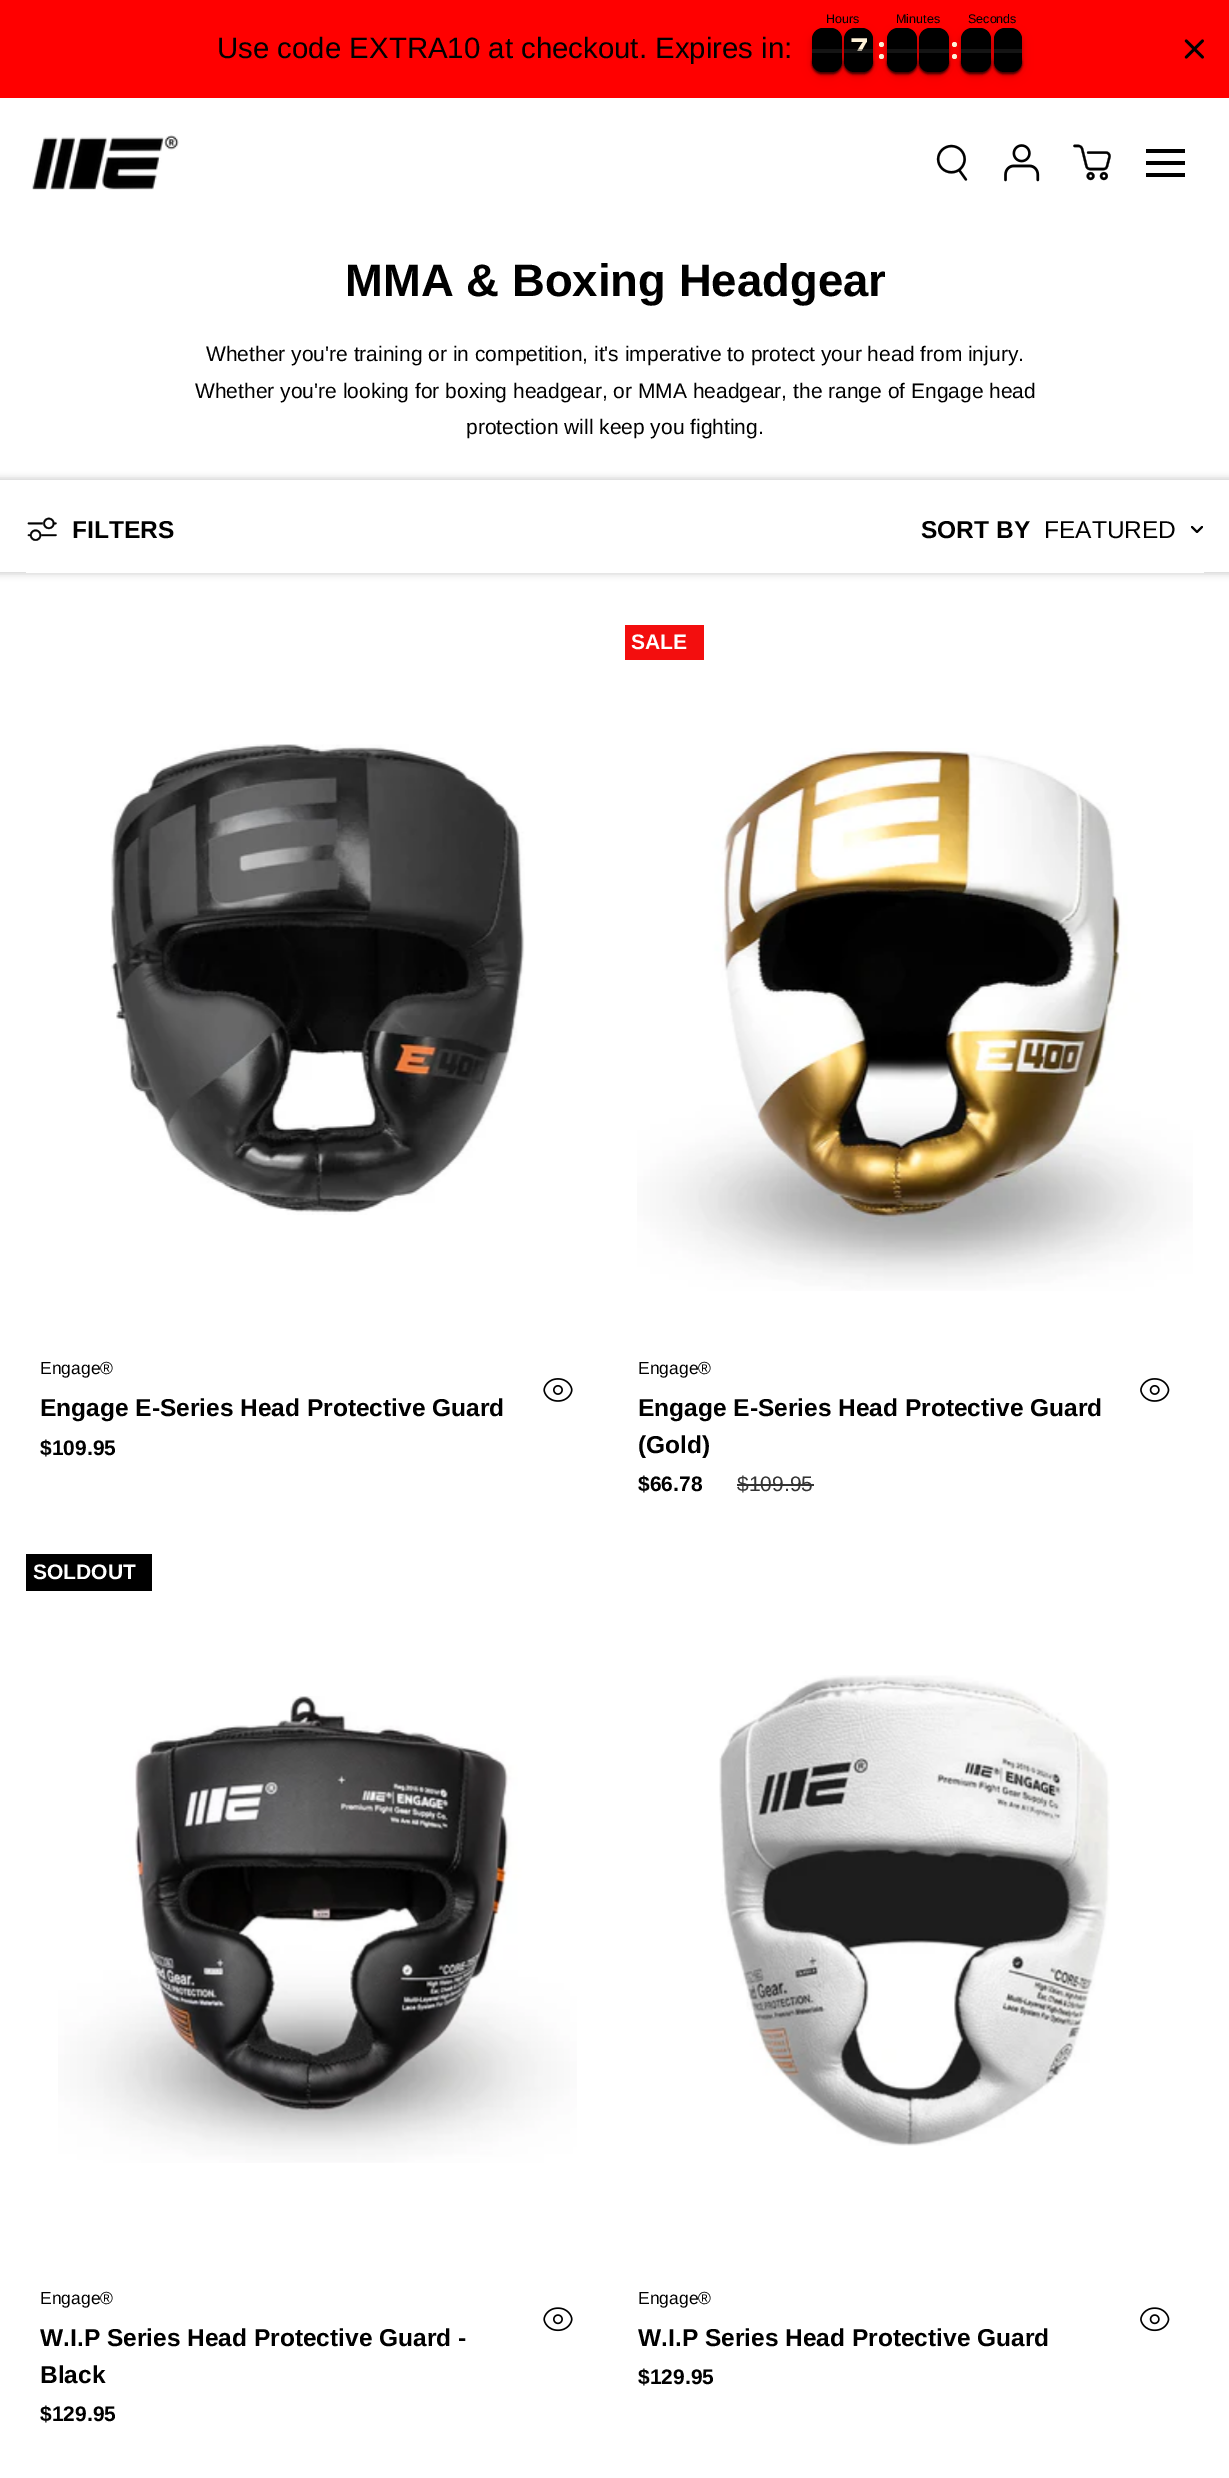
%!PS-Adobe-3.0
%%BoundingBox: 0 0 1229 2478
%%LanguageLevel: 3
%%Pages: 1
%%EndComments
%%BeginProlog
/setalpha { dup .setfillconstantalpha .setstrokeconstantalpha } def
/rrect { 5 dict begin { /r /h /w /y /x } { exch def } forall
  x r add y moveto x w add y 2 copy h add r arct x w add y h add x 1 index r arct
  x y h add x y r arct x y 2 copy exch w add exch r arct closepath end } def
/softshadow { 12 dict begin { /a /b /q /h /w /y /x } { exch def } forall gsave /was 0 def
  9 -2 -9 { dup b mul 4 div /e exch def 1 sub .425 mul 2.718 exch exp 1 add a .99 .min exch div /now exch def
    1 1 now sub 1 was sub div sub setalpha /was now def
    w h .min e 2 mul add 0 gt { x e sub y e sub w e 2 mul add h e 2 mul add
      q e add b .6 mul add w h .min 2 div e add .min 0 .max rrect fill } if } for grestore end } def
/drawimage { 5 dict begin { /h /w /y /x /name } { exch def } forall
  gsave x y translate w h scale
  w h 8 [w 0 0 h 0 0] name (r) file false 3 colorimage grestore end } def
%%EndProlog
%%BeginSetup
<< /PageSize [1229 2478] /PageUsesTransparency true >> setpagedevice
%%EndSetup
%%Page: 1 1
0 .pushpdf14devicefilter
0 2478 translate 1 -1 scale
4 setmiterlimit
1 setgray
0 0 1229 2478 rectfill
1 0 0 setrgbcolor
0 0 1229 98 rectfill
0 setgray
812 33 30 44 11 7 0.05 softshadow
812 32 30 43 11 2.5 0.24 softshadow
812 53 30 21 10.5 1 0.4 softshadow
844 33 29 44 11 7 0.05 softshadow
844 32 29 43 11 2.5 0.24 softshadow
844 53 29 21 10.5 1 0.4 softshadow
newpath 823 28 moveto 831 28 lineto 837 28 842 33 842 39 curveto 842 51 lineto 812 51 lineto 812 39 lineto 812 33 817 28 823 28 curveto closepath fill
0.4 setalpha
0.2 setgray
812 49 30 2 rectfill
1 setalpha
0 setgray
812 53 30 21 10.5 1 0.4 softshadow
newpath 812 51 moveto 842 51 lineto 842 61.5 lineto 842 67.5 837.5 72 831.5 72 curveto 822.5 72 lineto 816.5 72 812 67.5 812 61.5 curveto closepath fill
0.1 setalpha
0.8 setgray
812 51 30 2 rectfill
1 setalpha
1 0.953 0.851 setrgbcolor
newpath 881.5 44.5 2.5 0 360 arc closepath fill
newpath 881.5 56.5 2.5 0 360 arc closepath fill
0 setgray
887 33 30 44 11 7 0.05 softshadow
newpath 855 28 moveto 862 28 lineto 868 28 873 33 873 39 curveto 873 51 lineto 844 51 lineto 844 39 lineto 844 33 849 28 855 28 curveto closepath fill
887 32 30 43 11 2.5 0.24 softshadow
887 53 30 21 10.5 1 0.4 softshadow
919 33 30 44 11 7 0.05 softshadow
919 32 30 43 11 2.5 0.24 softshadow
1 0.953 0.851 setrgbcolor
newpath 954.5 56.5 2.5 0 360 arc closepath fill
0 setgray
919 53 30 21 10.5 1 0.4 softshadow
newpath 898 28 moveto 906 28 lineto 912 28 917 33 917 39 curveto 917 51 lineto 887 51 lineto 887 39 lineto 887 33 892 28 898 28 curveto closepath fill
0.4 setalpha
0.2 setgray
887 49 30 2 rectfill
1 setalpha
0 setgray
887 53 30 21 10.5 1 0.4 softshadow
newpath 887 51 moveto 917 51 lineto 917 61.5 lineto 917 67.5 912.5 72 906.5 72 curveto 897.5 72 lineto 891.5 72 887 67.5 887 61.5 curveto closepath fill
0.1 setalpha
0.8 setgray
887 51 30 2 rectfill
1 setalpha
1 0.953 0.851 setrgbcolor
newpath 954.5 44.5 2.5 0 360 arc closepath fill
0 setgray
961 33 30 44 11 7 0.05 softshadow
newpath 930 28 moveto 938 28 lineto 944 28 949 33 949 39 curveto 949 51 lineto 919 51 lineto 919 39 lineto 919 33 924 28 930 28 curveto closepath fill
0.4 setalpha
0.2 setgray
919 49 30 2 rectfill
1 setalpha
0 setgray
919 53 30 21 10.5 1 0.4 softshadow
newpath 919 51 moveto 949 51 lineto 949 61.5 lineto 949 67.5 944.5 72 938.5 72 curveto 929.5 72 lineto 923.5 72 919 67.5 919 61.5 curveto closepath fill
0.1 setalpha
0.8 setgray
919 51 30 2 rectfill
1 setalpha
0 setgray
961 32 30 43 11 2.5 0.24 softshadow
961 53 30 21 10.5 1 0.4 softshadow
994 33 28 44 11 7 0.05 softshadow
994 32 28 43 11 2.5 0.24 softshadow
994 53 28 21 10.5 1 0.4 softshadow
newpath 972 28 moveto 980 28 lineto 986 28 991 33 991 39 curveto 991 51 lineto 961 51 lineto 961 39 lineto 961 33 966 28 972 28 curveto closepath fill
0.4 setalpha
0.2 setgray
961 49 30 2 rectfill
1 setalpha
0 setgray
961 53 30 21 10.5 1 0.4 softshadow
newpath 961 51 moveto 991 51 lineto 991 61.5 lineto 991 67.5 986.5 72 980.5 72 curveto 971.5 72 lineto 965.5 72 961 67.5 961 61.5 curveto closepath fill
0.1 setalpha
0.8 setgray
961 51 30 2 rectfill
1 setalpha
0 setgray
newpath 1005 28 moveto 1011 28 lineto 1017 28 1022 33 1022 39 curveto 1022 51 lineto 994 51 lineto 994 39 lineto 994 33 999 28 1005 28 curveto closepath fill
0.4 setalpha
0.2 setgray
994 49 28 2 rectfill
1 setalpha
0 setgray
994 53 28 21 10.5 1 0.4 softshadow
newpath 994 51 moveto 1022 51 lineto 1022 61.5 lineto 1022 67.5 1017.5 72 1011.5 72 curveto 1004.5 72 lineto 998.5 72 994 67.5 994 61.5 curveto closepath fill
0.1 setalpha
0.8 setgray
994 51 28 2 rectfill
1 setalpha
(images/1.raw) 1184 39 20 20 drawimage
(images/2.raw) 32 135 147 55 drawimage
(images/3.raw) 936 144 32 37 drawimage
(images/4.raw) 1004 144 36 38 drawimage
(images/5.raw) 1073 144 38 37 drawimage
0 setgray
1146 149 39 4 rectfill
1146 161 39 4 rectfill
1146 173 39 4 rectfill
gsave
newpath 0 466 moveto 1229 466 lineto 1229 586 lineto 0 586 lineto closepath 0 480 moveto 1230 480 lineto 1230 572 lineto 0 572 lineto closepath eoclip newpath
-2 478 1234 96 0 3.5 0.17 softshadow
grestore
1 setgray
26 572 1178 1 rectfill
(images/6.raw) 27 517 30 24 drawimage
0 setgray
1.9 setlinewidth
1 setlinecap
1 setlinejoin
newpath 1202 527 moveto 1197 532 lineto 1192 527 lineto stroke
(images/7.raw) 110 744 415 471 drawimage
(images/8.raw) 543 1378 30 24 drawimage
0.953 0.055 0.055 setrgbcolor
625 625 79 35 rectfill
(images/9.raw) 637 748 556 543 drawimage
0.2 setgray
737 1484 77 2 rectfill
(images/10.raw) 1140 1378 30 24 drawimage
0 setgray
26 1554 126 37 rectfill
(images/11.raw) 58 1696 519 467 drawimage
(images/12.raw) 543 2307 30 25 drawimage
(images/13.raw) 719 1675 391 471 drawimage
(images/14.raw) 1140 2307 30 25 drawimage
/LiberationSans-Regular [29.4 0 0 -29.4 0 0] selectfont
217 58 moveto (Use code EXTRA10 at checkout. Expires in:) show
/LiberationSans-Regular [12.5 0 0 -12.5 0 0] selectfont
826 23 moveto (Hours) show
/LiberationSans-Bold [33 0 0 -33 0 0] selectfont
1 0.953 0.851 setrgbcolor
850 61 moveto (7) show
0.4 setalpha
0.2 setgray
844 49 29 2 rectfill
1 setalpha
0 setgray
844 53 29 21 10.5 1 0.4 softshadow
newpath 844 51 moveto 873 51 lineto 873 61.5 lineto 873 67.5 868.5 72 862.5 72 curveto 854.5 72 lineto 848.5 72 844 67.5 844 61.5 curveto closepath fill
0.1 setalpha
0.8 setgray
844 51 29 2 rectfill
/LiberationSans-Regular [12.5 0 0 -12.5 0 0] selectfont
1 setalpha
0 setgray
896 23 moveto (Minutes) show
968 23 moveto (Seconds) show
/LiberationSans-Bold [45.5 0 0 -45.5 0 0] selectfont
345 296 moveto (MMA & Boxing Headgear) show
/LiberationSans-Regular [21 0 0 -21 0 0] selectfont
206 361 moveto (Whether you're training or in competition, it's imperative to protect your head from injury.) show
195 398 moveto (Whether you're looking for boxing headgear, or MMA headgear, the range of Engage head) show
466 434 moveto (protection will keep you fighting.) show
/LiberationSans-Bold [24.5 0 0 -24.5 0 0] selectfont
72 538 moveto (FILTERS) show
921 538 moveto (SORT BY) show
/LiberationSans-Regular [24.5 0 0 -24.5 0 0] selectfont
1044 538 moveto (FEATURED) show
/LiberationSans-Regular [17.5 0 0 -17.5 0 0] selectfont
40 1374 moveto (Engage®) show
/LiberationSans-Bold [24.5 0 0 -24.5 0 0] selectfont
40 1416 moveto (Engage E-Series Head Protective Guard) show
/LiberationSans-Bold [21 0 0 -21 0 0] selectfont
40 1455 moveto ($109.95) show
1 setgray
631 649 moveto (SALE) show
/LiberationSans-Regular [17.5 0 0 -17.5 0 0] selectfont
0 setgray
638 1374 moveto (Engage®) show
/LiberationSans-Bold [24.5 0 0 -24.5 0 0] selectfont
638 1416 moveto (Engage E-Series Head Protective Guard) show
638 1453 moveto (\(Gold\)) show
/LiberationSans-Bold [21 0 0 -21 0 0] selectfont
638 1491 moveto ($66.78) show
/LiberationSans-Regular [21 0 0 -21 0 0] selectfont
0.2 setgray
737 1491 moveto ($109.95) show
/LiberationSans-Bold [21 0 0 -21 0 0] selectfont
1 setgray
33 1579 moveto (SOLDOUT) show
/LiberationSans-Regular [17.5 0 0 -17.5 0 0] selectfont
0 setgray
40 2304 moveto (Engage®) show
/LiberationSans-Bold [24.5 0 0 -24.5 0 0] selectfont
40 2346 moveto (W.I.P Series Head Protective Guard -) show
40 2383 moveto (Black) show
/LiberationSans-Bold [21 0 0 -21 0 0] selectfont
40 2421 moveto ($129.95) show
/LiberationSans-Regular [17.5 0 0 -17.5 0 0] selectfont
638 2304 moveto (Engage®) show
/LiberationSans-Bold [24.5 0 0 -24.5 0 0] selectfont
638 2346 moveto (W.I.P Series Head Protective Guard) show
/LiberationSans-Bold [21 0 0 -21 0 0] selectfont
638 2384 moveto ($129.95) show
.poppdf14devicefilter showpage
%%EOF
